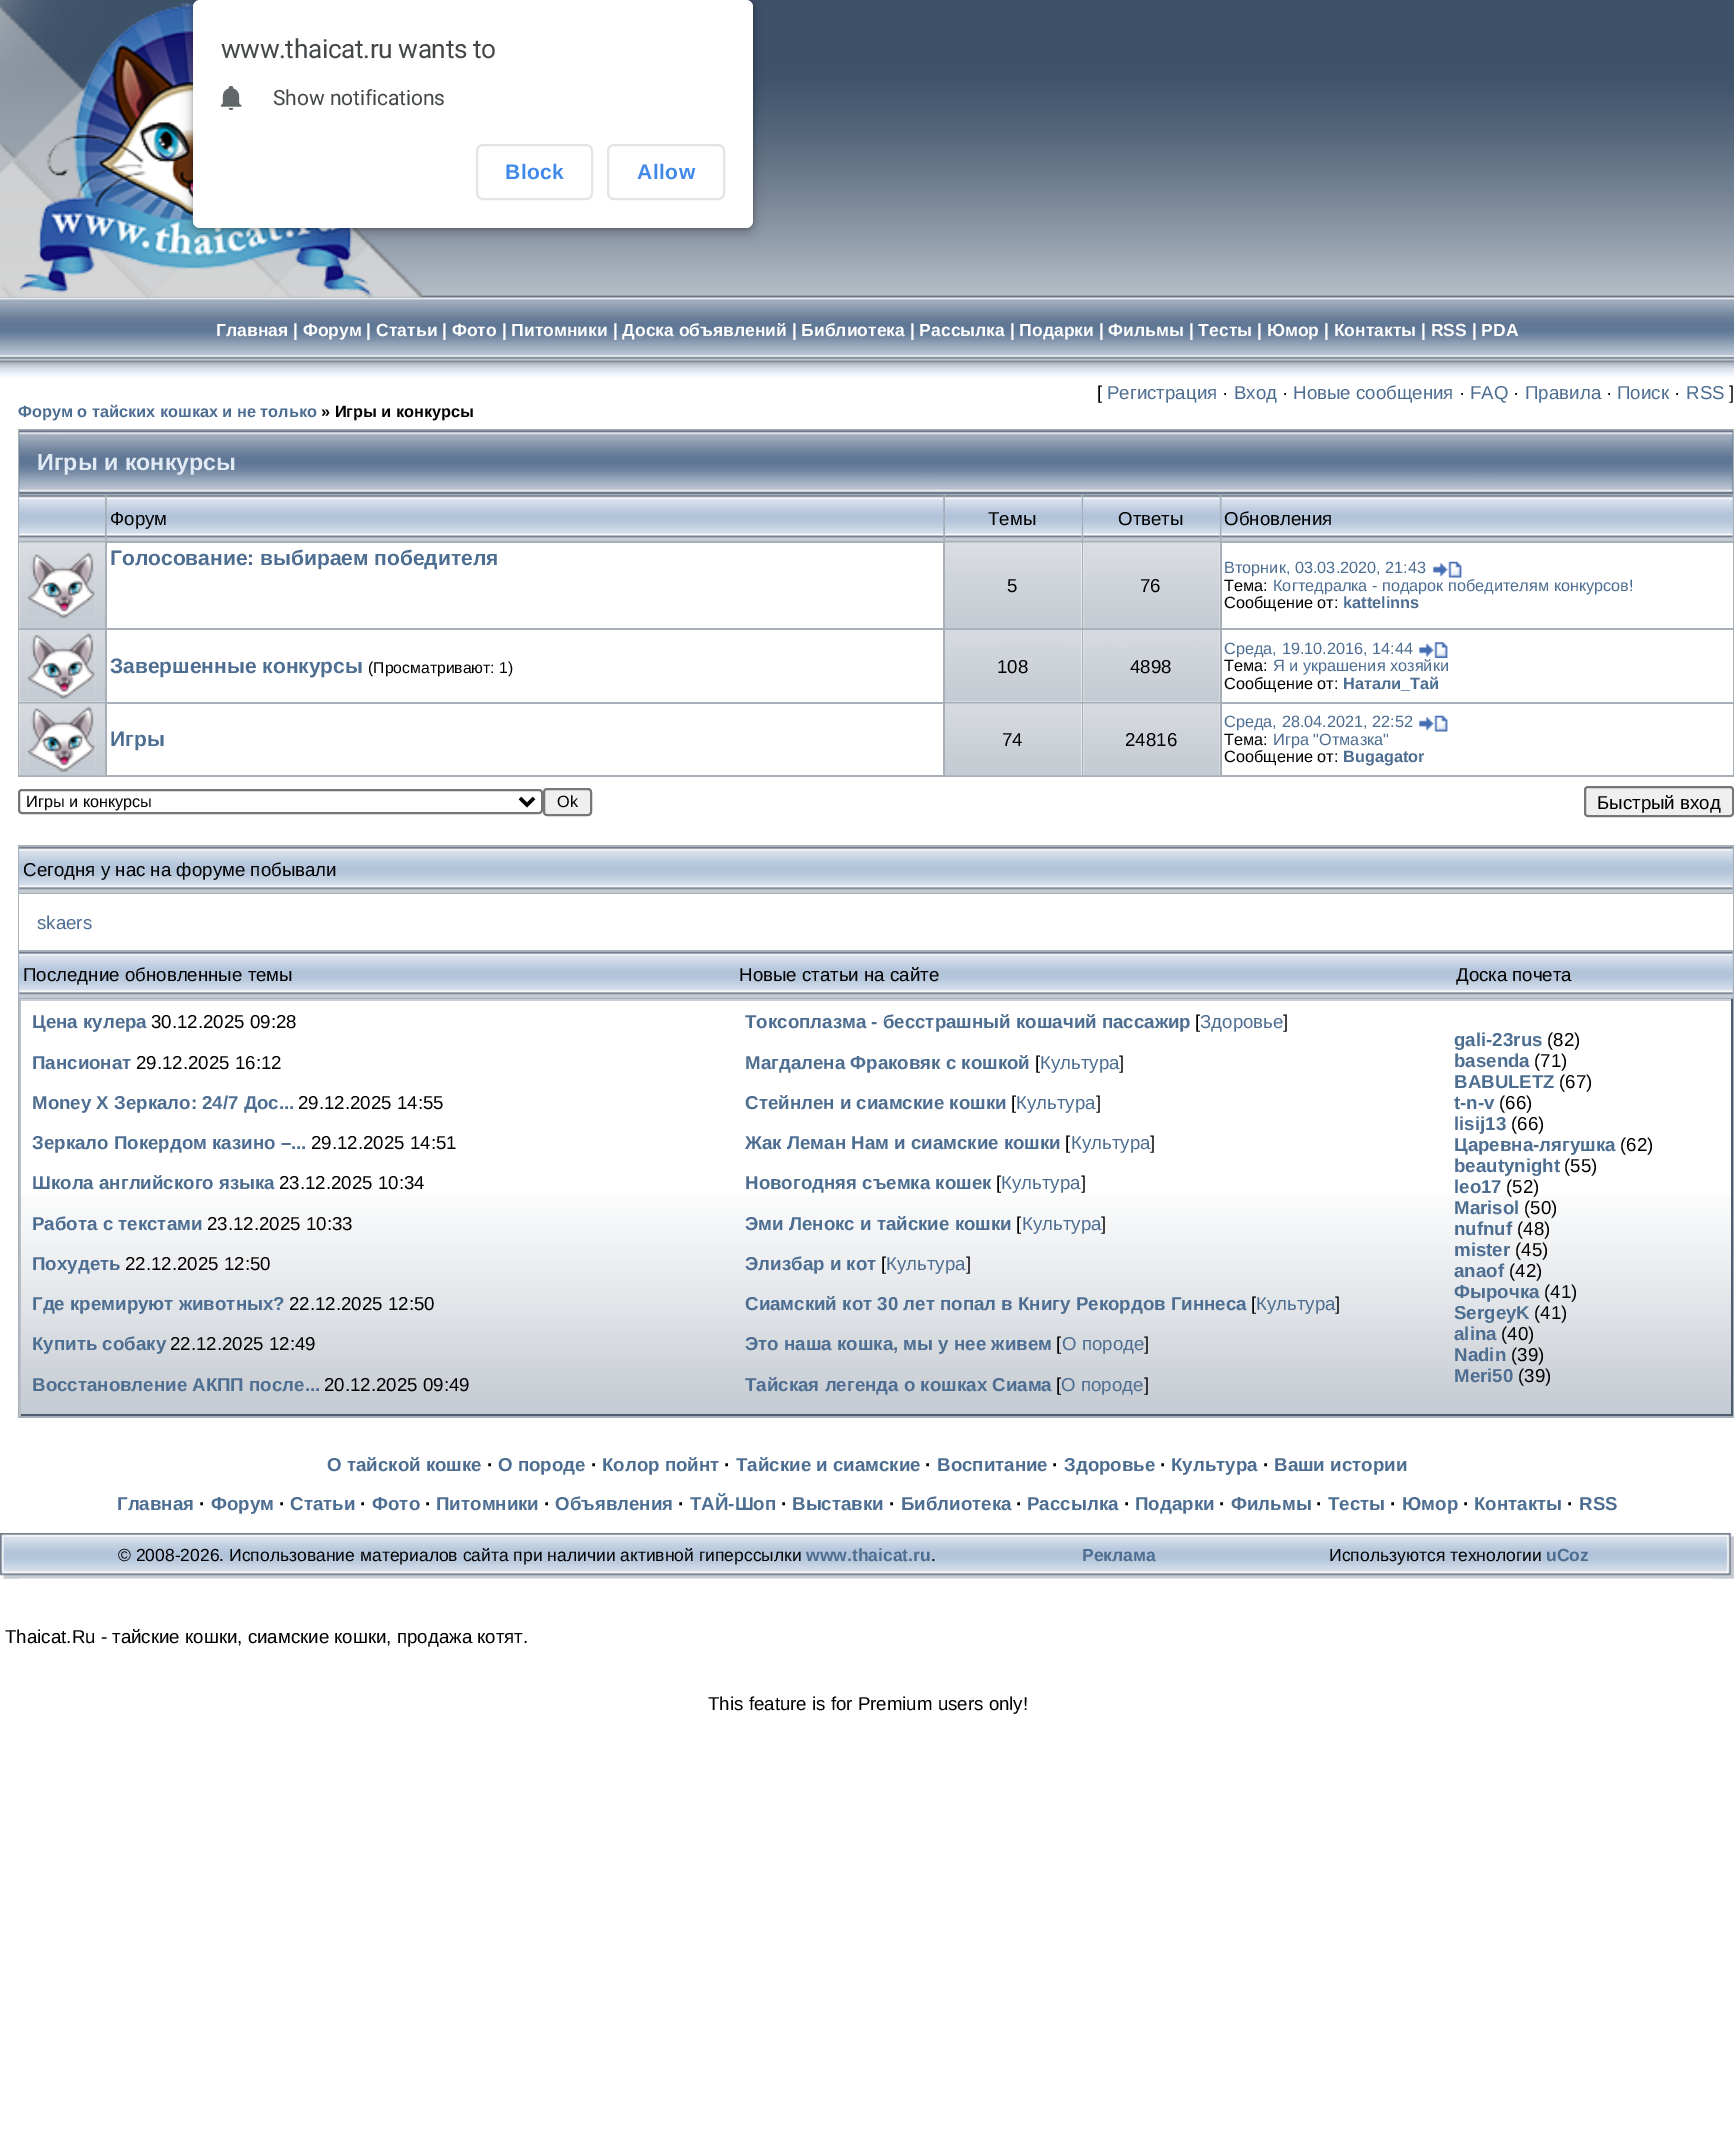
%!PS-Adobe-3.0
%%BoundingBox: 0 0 1734 2147
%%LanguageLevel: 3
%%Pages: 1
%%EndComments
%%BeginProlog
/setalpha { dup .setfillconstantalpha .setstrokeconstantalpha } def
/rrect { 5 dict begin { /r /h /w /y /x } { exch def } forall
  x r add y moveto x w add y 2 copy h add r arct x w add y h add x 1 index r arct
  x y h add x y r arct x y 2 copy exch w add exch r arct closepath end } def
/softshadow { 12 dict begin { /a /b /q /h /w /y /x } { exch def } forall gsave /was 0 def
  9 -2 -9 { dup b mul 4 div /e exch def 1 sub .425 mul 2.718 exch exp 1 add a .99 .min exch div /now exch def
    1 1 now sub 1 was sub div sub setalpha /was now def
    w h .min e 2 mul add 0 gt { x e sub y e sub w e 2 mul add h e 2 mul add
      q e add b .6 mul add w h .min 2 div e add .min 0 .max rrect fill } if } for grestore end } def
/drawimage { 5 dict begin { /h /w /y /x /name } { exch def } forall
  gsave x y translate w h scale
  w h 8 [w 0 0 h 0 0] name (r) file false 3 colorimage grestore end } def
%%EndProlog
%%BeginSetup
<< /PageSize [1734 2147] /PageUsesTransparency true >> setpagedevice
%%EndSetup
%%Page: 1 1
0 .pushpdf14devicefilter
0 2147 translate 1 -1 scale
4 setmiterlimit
1 setgray
0 0 1734 2147 rectfill
(images/2.raw) 0 0 1734 377 drawimage
(images/3.raw) 0 0 422 298 drawimage
0 setgray
189 0 567 235 11 5 0.15 softshadow
193 2 560 227 7 2 0.3 softshadow
1 setgray
193 0 560 228 7 rrect fill
(images/1.raw) 221 86 21 24 drawimage
0.894 setgray
2 setlinewidth
477 145 115 54 6 rrect stroke
608 145 116 54 6 rrect stroke
0.655 0.686 0.722 setrgbcolor
18 429 1716 348 rectfill
0.376 0.467 0.584 setrgbcolor
19 431 1714 63 rectfill
(images/4.raw) 19 430 1714 64 drawimage
0.706 0.773 0.859 setrgbcolor
19 495 86 46 rectfill
(images/5.raw) 19 495 86 46 drawimage
(images/6.raw) 106 495 838 46 drawimage
945 495 137 46 rectfill
(images/7.raw) 945 495 137 46 drawimage
1083 495 137 46 rectfill
(images/8.raw) 1083 495 137 46 drawimage
1222 495 511 46 rectfill
(images/9.raw) 1221 495 512 46 drawimage
(images/10.raw) 19 542 86 87 drawimage
(images/11.raw) 27 553 69 65 drawimage
1 setgray
107 543 836 85 rectfill
1081 543 1 85 rectfill
(images/12.raw) 945 542 137 87 drawimage
(images/13.raw) 1083 542 137 87 drawimage
1222 543 511 85 rectfill
(images/14.raw) 1432 561 30 17 drawimage
19 630 86 72 rectfill
(images/15.raw) 19 630 86 72 drawimage
(images/16.raw) 26 633 70 66 drawimage
107 630 836 72 rectfill
945 630 137 72 rectfill
(images/17.raw) 945 630 137 72 drawimage
1083 630 137 72 rectfill
(images/18.raw) 1083 630 137 72 drawimage
1222 630 511 72 rectfill
(images/19.raw) 1418 642 30 16 drawimage
(images/20.raw) 19 703 86 73 drawimage
(images/21.raw) 26 707 70 65 drawimage
107 704 836 71 rectfill
1081 704 1 71 rectfill
(images/22.raw) 945 703 137 73 drawimage
(images/23.raw) 1083 703 137 73 drawimage
1222 704 511 71 rectfill
(images/14.raw) 1418 715 30 17 drawimage
0.463 setgray
19 790 523 23 3 rrect stroke
0 setgray
3.5 setlinewidth
newpath 520 798 moveto 527 805 lineto 534 798 lineto stroke
0.937 setgray
544 789 47 26 3 rrect gsave fill grestore
0.463 setgray
2 setlinewidth
stroke
0.937 setgray
1585 787 148 29 3 rrect gsave fill grestore
0.463 setgray
stroke
0.655 0.686 0.722 setrgbcolor
18 845 1716 573 rectfill
0.706 0.773 0.859 setrgbcolor
19 847 1714 46 rectfill
(images/24.raw) 19 847 1714 46 drawimage
1 setgray
19 894 1714 56 rectfill
0.706 0.773 0.859 setrgbcolor
19 952 1714 46 rectfill
(images/24.raw) 19 952 1714 46 drawimage
1 setgray
21 1001 1710 194 rectfill
(images/25.raw) 21 1195 1710 219 drawimage
0.788 0.812 0.847 setrgbcolor
19 999 1714 2 rectfill
0.31 0.365 0.443 setrgbcolor
1731 999 2 417 rectfill
19 1414 1714 2 rectfill
0.725 0.749 0.78 setrgbcolor
19 999 2 417 rectfill
(images/26.raw) 0 1533 1734 46 drawimage
(images/27.raw) 0 1534 19 45 drawimage
(images/28.raw) 1713 1533 21 46 drawimage
/Roboto-Regular [26.25 0 0 -26.25 0 0] selectfont
0.263 0.278 0.286 setrgbcolor
221 58 moveto -0.4 0 (www.thaicat.ru wants to) ashow
/Roboto-Regular [21 0 0 -21 0 0] selectfont
273 105 moveto -0.1 0 (Show notifications) ashow
/LiberationSans-Bold [21 0 0 -21 0 0] selectfont
0.251 0.537 0.91 setrgbcolor
505 179 moveto 0.5 0 (Block) ashow
637 179 moveto 0.5 0 (Allow) ashow
/LiberationSans-Bold [17.5 0 0 -17.5 0 0] selectfont
1 setgray
216 336 moveto (Главная | Форум | Статьи | Фото | Питомники | Доска объявлений | Библиотека | Рассылка | Подарки | Фильмы | Тесты | Юмор | Контакты | RSS | PDA) show
/LiberationSans-Regular [18.7 0 0 -18.7 0 0] selectfont
0 setgray
1097 399 moveto ([) show
0.302 0.427 0.569 setrgbcolor
1107 399 moveto (Регистрация) show
0 setgray
1222 399 moveto (·) show
0.302 0.427 0.569 setrgbcolor
1234 399 moveto (Вход) show
0 setgray
1282 399 moveto (·) show
0.302 0.427 0.569 setrgbcolor
1293 399 moveto (Новые сообщения) show
0 setgray
1459 399 moveto (·) show
0.302 0.427 0.569 setrgbcolor
1470 399 moveto (FAQ) show
0 setgray
1513 399 moveto (·) show
0.302 0.427 0.569 setrgbcolor
1525 399 moveto (Правила) show
0 setgray
1606 399 moveto (·) show
0.302 0.427 0.569 setrgbcolor
1617 399 moveto (Поиск) show
0 setgray
1674 399 moveto (·) show
0.302 0.427 0.569 setrgbcolor
1686 399 moveto (RSS) show
0 setgray
1729 399 moveto (]) show
/LiberationSans-Bold [16.3 0 0 -16.3 0 0] selectfont
0.302 0.427 0.569 setrgbcolor
18 417 moveto (Форум о тайских кошках и не только) show
0 setgray
321 417 moveto (» Игры и конкурсы) show
/LiberationSans-Bold [23.25 0 0 -23.25 0 0] selectfont
0.886 0.922 0.961 setrgbcolor
37 470 moveto (Игры и конкурсы) show
/LiberationSans-Regular [18.7 0 0 -18.7 0 0] selectfont
0 setgray
110 525 moveto (Форум) show
988 525 moveto (Темы) show
1118 525 moveto (Ответы) show
1224 525 moveto (Обновления) show
/LiberationSans-Bold [21 0 0 -21 0 0] selectfont
0.302 0.427 0.569 setrgbcolor
110 565 moveto (Голосование: выбираем победителя) show
/LiberationSans-Regular [18.7 0 0 -18.7 0 0] selectfont
0 setgray
1007 592 moveto (5) show
1140 592 moveto (76) show
/LiberationSans-Regular [16.3 0 0 -16.3 0 0] selectfont
0.302 0.427 0.569 setrgbcolor
1224 573 moveto (Вторник, 03.03.2020, 21:43) show
0 setgray
1224 591 moveto (Тема:) show
0.302 0.427 0.569 setrgbcolor
1273 591 moveto (Когтедралка - подарок победителям конкурсов!) show
0 setgray
1224 608 moveto (Сообщение от:) show
/LiberationSans-Bold [16.3 0 0 -16.3 0 0] selectfont
0.302 0.427 0.569 setrgbcolor
1343 608 moveto (kattelinns) show
/LiberationSans-Bold [21 0 0 -21 0 0] selectfont
110 673 moveto (Завершенные конкурсы) show
/LiberationSans-Regular [15.75 0 0 -15.75 0 0] selectfont
0 setgray
368 673 moveto (\(Просматривают: 1\)) show
/LiberationSans-Regular [18.7 0 0 -18.7 0 0] selectfont
997 673 moveto (108) show
1130 673 moveto (4898) show
/LiberationSans-Regular [16.3 0 0 -16.3 0 0] selectfont
0.302 0.427 0.569 setrgbcolor
1224 654 moveto (Среда, 19.10.2016, 14:44) show
0 setgray
1224 671 moveto (Тема:) show
0.302 0.427 0.569 setrgbcolor
1273 671 moveto (Я и украшения хозяйки) show
0 setgray
1224 689 moveto (Сообщение от:) show
/LiberationSans-Bold [16.3 0 0 -16.3 0 0] selectfont
0.302 0.427 0.569 setrgbcolor
1343 689 moveto (Натали_Тай) show
/LiberationSans-Bold [21 0 0 -21 0 0] selectfont
110 746 moveto (Игры) show
/LiberationSans-Regular [18.7 0 0 -18.7 0 0] selectfont
0 setgray
1002 746 moveto (74) show
1125 746 moveto (24816) show
/LiberationSans-Regular [16.3 0 0 -16.3 0 0] selectfont
0.302 0.427 0.569 setrgbcolor
1224 727 moveto (Среда, 28.04.2021, 22:52) show
0 setgray
1224 745 moveto (Тема:) show
0.302 0.427 0.569 setrgbcolor
1273 745 moveto (Игра "Отмазка") show
0 setgray
1224 762 moveto (Сообщение от:) show
/LiberationSans-Bold [16.3 0 0 -16.3 0 0] selectfont
0.302 0.427 0.569 setrgbcolor
1343 762 moveto (Bugagator) show
/LiberationSans-Regular [16.3 0 0 -16.3 0 0] selectfont
0 setgray
26 807 moveto (Игры и конкурсы) show
557 807 moveto (Ok) show
/LiberationSans-Regular [18.7 0 0 -18.7 0 0] selectfont
1597 809 moveto (Быстрый вход) show
23 876 moveto (Сегодня у нас на форуме побывали) show
0.302 0.427 0.569 setrgbcolor
37 929 moveto (skaers) show
0 setgray
23 981 moveto (Последние обновленные темы) show
739 981 moveto (Новые статьи на сайте) show
1456 981 moveto (Доска почета) show
/LiberationSans-Bold [18.7 0 0 -18.7 0 0] selectfont
0.302 0.427 0.569 setrgbcolor
32 1028 moveto (Цена кулера) show
/LiberationSans-Regular [18.7 0 0 -18.7 0 0] selectfont
0 setgray
151 1028 moveto (30.12.2025 09:28) show
/LiberationSans-Bold [18.7 0 0 -18.7 0 0] selectfont
0.302 0.427 0.569 setrgbcolor
32 1069 moveto (Пансионат) show
/LiberationSans-Regular [18.7 0 0 -18.7 0 0] selectfont
0 setgray
136 1069 moveto (29.12.2025 16:12) show
/LiberationSans-Bold [18.7 0 0 -18.7 0 0] selectfont
0.302 0.427 0.569 setrgbcolor
32 1109 moveto (Money X Зеркало: 24/7 Дос...) show
/LiberationSans-Regular [18.7 0 0 -18.7 0 0] selectfont
0 setgray
298 1109 moveto (29.12.2025 14:55) show
/LiberationSans-Bold [18.7 0 0 -18.7 0 0] selectfont
0.302 0.427 0.569 setrgbcolor
32 1149 moveto (Зеркало Покердом казино –...) show
/LiberationSans-Regular [18.7 0 0 -18.7 0 0] selectfont
0 setgray
311 1149 moveto (29.12.2025 14:51) show
/LiberationSans-Bold [18.7 0 0 -18.7 0 0] selectfont
0.302 0.427 0.569 setrgbcolor
32 1189 moveto (Школа английского языка) show
/LiberationSans-Regular [18.7 0 0 -18.7 0 0] selectfont
0 setgray
279 1189 moveto (23.12.2025 10:34) show
/LiberationSans-Bold [18.7 0 0 -18.7 0 0] selectfont
0.302 0.427 0.569 setrgbcolor
32 1230 moveto (Работа с текстами) show
/LiberationSans-Regular [18.7 0 0 -18.7 0 0] selectfont
0 setgray
207 1230 moveto (23.12.2025 10:33) show
/LiberationSans-Bold [18.7 0 0 -18.7 0 0] selectfont
0.302 0.427 0.569 setrgbcolor
32 1270 moveto (Похудеть) show
/LiberationSans-Regular [18.7 0 0 -18.7 0 0] selectfont
0 setgray
125 1270 moveto (22.12.2025 12:50) show
/LiberationSans-Bold [18.7 0 0 -18.7 0 0] selectfont
0.302 0.427 0.569 setrgbcolor
32 1310 moveto (Где кремируют животных?) show
/LiberationSans-Regular [18.7 0 0 -18.7 0 0] selectfont
0 setgray
289 1310 moveto (22.12.2025 12:50) show
/LiberationSans-Bold [18.7 0 0 -18.7 0 0] selectfont
0.302 0.427 0.569 setrgbcolor
32 1350 moveto (Купить собаку) show
/LiberationSans-Regular [18.7 0 0 -18.7 0 0] selectfont
0 setgray
170 1350 moveto (22.12.2025 12:49) show
/LiberationSans-Bold [18.7 0 0 -18.7 0 0] selectfont
0.302 0.427 0.569 setrgbcolor
32 1391 moveto (Восстановление АКПП после...) show
/LiberationSans-Regular [18.7 0 0 -18.7 0 0] selectfont
0 setgray
324 1391 moveto (20.12.2025 09:49) show
/LiberationSans-Bold [18.7 0 0 -18.7 0 0] selectfont
0.302 0.427 0.569 setrgbcolor
745 1028 moveto (Токсоплазма - бесстрашный кошачий пассажир) show
/LiberationSans-Regular [18.7 0 0 -18.7 0 0] selectfont
0 setgray
1195 1028 moveto ([) show
0.302 0.427 0.569 setrgbcolor
1200 1028 moveto (Здоровье) show
0 setgray
1283 1028 moveto (]) show
/LiberationSans-Bold [18.7 0 0 -18.7 0 0] selectfont
0.302 0.427 0.569 setrgbcolor
745 1069 moveto (Магдалена Фраковяк с кошкой) show
/LiberationSans-Regular [18.7 0 0 -18.7 0 0] selectfont
0 setgray
1035 1069 moveto ([) show
0.302 0.427 0.569 setrgbcolor
1040 1069 moveto (Культура) show
0 setgray
1119 1069 moveto (]) show
/LiberationSans-Bold [18.7 0 0 -18.7 0 0] selectfont
0.302 0.427 0.569 setrgbcolor
745 1109 moveto (Стейнлен и сиамские кошки) show
/LiberationSans-Regular [18.7 0 0 -18.7 0 0] selectfont
0 setgray
1011 1109 moveto ([) show
0.302 0.427 0.569 setrgbcolor
1016 1109 moveto (Культура) show
0 setgray
1096 1109 moveto (]) show
/LiberationSans-Bold [18.7 0 0 -18.7 0 0] selectfont
0.302 0.427 0.569 setrgbcolor
745 1149 moveto (Жак Леман Нам и сиамские кошки) show
/LiberationSans-Regular [18.7 0 0 -18.7 0 0] selectfont
0 setgray
1065 1149 moveto ([) show
0.302 0.427 0.569 setrgbcolor
1071 1149 moveto (Культура) show
0 setgray
1150 1149 moveto (]) show
/LiberationSans-Bold [18.7 0 0 -18.7 0 0] selectfont
0.302 0.427 0.569 setrgbcolor
745 1189 moveto (Новогодняя съемка кошек) show
/LiberationSans-Regular [18.7 0 0 -18.7 0 0] selectfont
0 setgray
996 1189 moveto ([) show
0.302 0.427 0.569 setrgbcolor
1001 1189 moveto (Культура) show
0 setgray
1081 1189 moveto (]) show
/LiberationSans-Bold [18.7 0 0 -18.7 0 0] selectfont
0.302 0.427 0.569 setrgbcolor
745 1230 moveto (Эми Ленокс и тайские кошки) show
/LiberationSans-Regular [18.7 0 0 -18.7 0 0] selectfont
0 setgray
1016 1230 moveto ([) show
0.302 0.427 0.569 setrgbcolor
1022 1230 moveto (Культура) show
0 setgray
1101 1230 moveto (]) show
/LiberationSans-Bold [18.7 0 0 -18.7 0 0] selectfont
0.302 0.427 0.569 setrgbcolor
745 1270 moveto (Элизбар и кот) show
/LiberationSans-Regular [18.7 0 0 -18.7 0 0] selectfont
0 setgray
881 1270 moveto ([) show
0.302 0.427 0.569 setrgbcolor
886 1270 moveto (Культура) show
0 setgray
966 1270 moveto (]) show
/LiberationSans-Bold [18.7 0 0 -18.7 0 0] selectfont
0.302 0.427 0.569 setrgbcolor
745 1310 moveto (Сиамский кот 30 лет попал в Книгу Рекордов Гиннеса) show
/LiberationSans-Regular [18.7 0 0 -18.7 0 0] selectfont
0 setgray
1251 1310 moveto ([) show
0.302 0.427 0.569 setrgbcolor
1256 1310 moveto (Культура) show
0 setgray
1335 1310 moveto (]) show
/LiberationSans-Bold [18.7 0 0 -18.7 0 0] selectfont
0.302 0.427 0.569 setrgbcolor
745 1350 moveto (Это наша кошка, мы у нее живем) show
/LiberationSans-Regular [18.7 0 0 -18.7 0 0] selectfont
0 setgray
1056 1350 moveto ([) show
0.302 0.427 0.569 setrgbcolor
1062 1350 moveto (О породе) show
0 setgray
1144 1350 moveto (]) show
/LiberationSans-Bold [18.7 0 0 -18.7 0 0] selectfont
0.302 0.427 0.569 setrgbcolor
745 1391 moveto (Тайская легенда о кошках Сиама) show
/LiberationSans-Regular [18.7 0 0 -18.7 0 0] selectfont
0 setgray
1056 1391 moveto ([) show
0.302 0.427 0.569 setrgbcolor
1061 1391 moveto (О породе) show
0 setgray
1144 1391 moveto (]) show
/LiberationSans-Bold [18.7 0 0 -18.7 0 0] selectfont
0.302 0.427 0.569 setrgbcolor
1454 1046 moveto (gali-23rus) show
/LiberationSans-Regular [18.7 0 0 -18.7 0 0] selectfont
0 setgray
1547 1046 moveto (\(82\)) show
/LiberationSans-Bold [18.7 0 0 -18.7 0 0] selectfont
0.302 0.427 0.569 setrgbcolor
1454 1067 moveto (basenda) show
/LiberationSans-Regular [18.7 0 0 -18.7 0 0] selectfont
0 setgray
1534 1067 moveto (\(71\)) show
/LiberationSans-Bold [18.7 0 0 -18.7 0 0] selectfont
0.302 0.427 0.569 setrgbcolor
1454 1088 moveto (BABULETZ) show
/LiberationSans-Regular [18.7 0 0 -18.7 0 0] selectfont
0 setgray
1559 1088 moveto (\(67\)) show
/LiberationSans-Bold [18.7 0 0 -18.7 0 0] selectfont
0.302 0.427 0.569 setrgbcolor
1454 1109 moveto (t-n-v) show
/LiberationSans-Regular [18.7 0 0 -18.7 0 0] selectfont
0 setgray
1499 1109 moveto (\(66\)) show
/LiberationSans-Bold [18.7 0 0 -18.7 0 0] selectfont
0.302 0.427 0.569 setrgbcolor
1454 1130 moveto (lisij13) show
/LiberationSans-Regular [18.7 0 0 -18.7 0 0] selectfont
0 setgray
1511 1130 moveto (\(66\)) show
/LiberationSans-Bold [18.7 0 0 -18.7 0 0] selectfont
0.302 0.427 0.569 setrgbcolor
1454 1151 moveto (Царевна-лягушка) show
/LiberationSans-Regular [18.7 0 0 -18.7 0 0] selectfont
0 setgray
1620 1151 moveto (\(62\)) show
/LiberationSans-Bold [18.7 0 0 -18.7 0 0] selectfont
0.302 0.427 0.569 setrgbcolor
1454 1172 moveto (beautynight) show
/LiberationSans-Regular [18.7 0 0 -18.7 0 0] selectfont
0 setgray
1564 1172 moveto (\(55\)) show
/LiberationSans-Bold [18.7 0 0 -18.7 0 0] selectfont
0.302 0.427 0.569 setrgbcolor
1454 1193 moveto (leo17) show
/LiberationSans-Regular [18.7 0 0 -18.7 0 0] selectfont
0 setgray
1506 1193 moveto (\(52\)) show
/LiberationSans-Bold [18.7 0 0 -18.7 0 0] selectfont
0.302 0.427 0.569 setrgbcolor
1454 1214 moveto (Marisol) show
/LiberationSans-Regular [18.7 0 0 -18.7 0 0] selectfont
0 setgray
1524 1214 moveto (\(50\)) show
/LiberationSans-Bold [18.7 0 0 -18.7 0 0] selectfont
0.302 0.427 0.569 setrgbcolor
1454 1235 moveto (nufnuf) show
/LiberationSans-Regular [18.7 0 0 -18.7 0 0] selectfont
0 setgray
1517 1235 moveto (\(48\)) show
/LiberationSans-Bold [18.7 0 0 -18.7 0 0] selectfont
0.302 0.427 0.569 setrgbcolor
1454 1256 moveto (mister) show
/LiberationSans-Regular [18.7 0 0 -18.7 0 0] selectfont
0 setgray
1515 1256 moveto (\(45\)) show
/LiberationSans-Bold [18.7 0 0 -18.7 0 0] selectfont
0.302 0.427 0.569 setrgbcolor
1454 1277 moveto (anaof) show
/LiberationSans-Regular [18.7 0 0 -18.7 0 0] selectfont
0 setgray
1509 1277 moveto (\(42\)) show
/LiberationSans-Bold [18.7 0 0 -18.7 0 0] selectfont
0.302 0.427 0.569 setrgbcolor
1454 1298 moveto (Фырочка) show
/LiberationSans-Regular [18.7 0 0 -18.7 0 0] selectfont
0 setgray
1544 1298 moveto (\(41\)) show
/LiberationSans-Bold [18.7 0 0 -18.7 0 0] selectfont
0.302 0.427 0.569 setrgbcolor
1454 1319 moveto (SergeyK) show
/LiberationSans-Regular [18.7 0 0 -18.7 0 0] selectfont
0 setgray
1534 1319 moveto (\(41\)) show
/LiberationSans-Bold [18.7 0 0 -18.7 0 0] selectfont
0.302 0.427 0.569 setrgbcolor
1454 1340 moveto (alina) show
/LiberationSans-Regular [18.7 0 0 -18.7 0 0] selectfont
0 setgray
1501 1340 moveto (\(40\)) show
/LiberationSans-Bold [18.7 0 0 -18.7 0 0] selectfont
0.302 0.427 0.569 setrgbcolor
1454 1361 moveto (Nadin) show
/LiberationSans-Regular [18.7 0 0 -18.7 0 0] selectfont
0 setgray
1511 1361 moveto (\(39\)) show
/LiberationSans-Bold [18.7 0 0 -18.7 0 0] selectfont
0.302 0.427 0.569 setrgbcolor
1454 1382 moveto (Meri50) show
/LiberationSans-Regular [18.7 0 0 -18.7 0 0] selectfont
0 setgray
1518 1382 moveto (\(39\)) show
/LiberationSans-Bold [18.7 0 0 -18.7 0 0] selectfont
0.302 0.427 0.569 setrgbcolor
327 1471 moveto (О тайской кошке) show
0 setgray
487 1471 moveto (·) show
0.302 0.427 0.569 setrgbcolor
498 1471 moveto (О породе) show
0 setgray
591 1471 moveto (·) show
0.302 0.427 0.569 setrgbcolor
602 1471 moveto (Колор пойнт) show
0 setgray
724 1471 moveto (·) show
0.302 0.427 0.569 setrgbcolor
736 1471 moveto (Тайские и сиамские) show
0 setgray
925 1471 moveto (·) show
0.302 0.427 0.569 setrgbcolor
937 1471 moveto (Воспитание) show
0 setgray
1052 1471 moveto (·) show
0.302 0.427 0.569 setrgbcolor
1064 1471 moveto (Здоровье) show
0 setgray
1160 1471 moveto (·) show
0.302 0.427 0.569 setrgbcolor
1171 1471 moveto (Культура) show
0 setgray
1263 1471 moveto (·) show
0.302 0.427 0.569 setrgbcolor
1274 1471 moveto (Ваши истории) show
117 1510 moveto (Главная) show
0 setgray
199 1510 moveto (·) show
0.302 0.427 0.569 setrgbcolor
211 1510 moveto (Форум) show
0 setgray
279 1510 moveto (·) show
0.302 0.427 0.569 setrgbcolor
290 1510 moveto (Статьи) show
0 setgray
360 1510 moveto (·) show
0.302 0.427 0.569 setrgbcolor
372 1510 moveto (Фото) show
0 setgray
425 1510 moveto (·) show
0.302 0.427 0.569 setrgbcolor
436 1510 moveto (Питомники) show
0 setgray
544 1510 moveto (·) show
0.302 0.427 0.569 setrgbcolor
555 1510 moveto (Объявления) show
0 setgray
678 1510 moveto (·) show
0.302 0.427 0.569 setrgbcolor
690 1510 moveto (ТАЙ-Шоп) show
0 setgray
781 1510 moveto (·) show
0.302 0.427 0.569 setrgbcolor
792 1510 moveto (Выставки) show
0 setgray
889 1510 moveto (·) show
0.302 0.427 0.569 setrgbcolor
901 1510 moveto (Библиотека) show
0 setgray
1016 1510 moveto (·) show
0.302 0.427 0.569 setrgbcolor
1027 1510 moveto (Рассылка) show
0 setgray
1124 1510 moveto (·) show
0.302 0.427 0.569 setrgbcolor
1135 1510 moveto (Подарки) show
0 setgray
1219 1510 moveto (·) show
0.302 0.427 0.569 setrgbcolor
1231 1510 moveto (Фильмы) show
0 setgray
1316 1510 moveto (·) show
0.302 0.427 0.569 setrgbcolor
1328 1510 moveto (Тесты) show
0 setgray
1390 1510 moveto (·) show
0.302 0.427 0.569 setrgbcolor
1402 1510 moveto (Юмор) show
0 setgray
1463 1510 moveto (·) show
0.302 0.427 0.569 setrgbcolor
1474 1510 moveto (Контакты) show
0 setgray
1567 1510 moveto (·) show
0.302 0.427 0.569 setrgbcolor
1579 1510 moveto (RSS) show
/LiberationSans-Regular [17.5 0 0 -17.5 0 0] selectfont
0 setgray
118 1561 moveto (© 2008-2026. Использование материалов сайта при наличии активной гиперссылки) show
/LiberationSans-Bold [17.5 0 0 -17.5 0 0] selectfont
0.302 0.427 0.569 setrgbcolor
806 1561 moveto (www.thaicat.ru) show
/LiberationSans-Regular [17.5 0 0 -17.5 0 0] selectfont
0 setgray
931 1561 moveto (.) show
/LiberationSans-Bold [17.5 0 0 -17.5 0 0] selectfont
0.302 0.427 0.569 setrgbcolor
1082 1561 moveto (Реклама) show
/LiberationSans-Regular [17.5 0 0 -17.5 0 0] selectfont
0 setgray
1329 1561 moveto (Используются технологии) show
/LiberationSans-Bold [17.5 0 0 -17.5 0 0] selectfont
0.302 0.427 0.569 setrgbcolor
1546 1561 moveto (uCoz) show
/LiberationSans-Regular [18.7 0 0 -18.7 0 0] selectfont
0 setgray
5 1643 moveto (Thaicat.Ru - тайские кошки, сиамские кошки, продажа котят.) show
708 1710 moveto (This feature is for Premium users only!) show
.poppdf14devicefilter showpage
%%EOF
